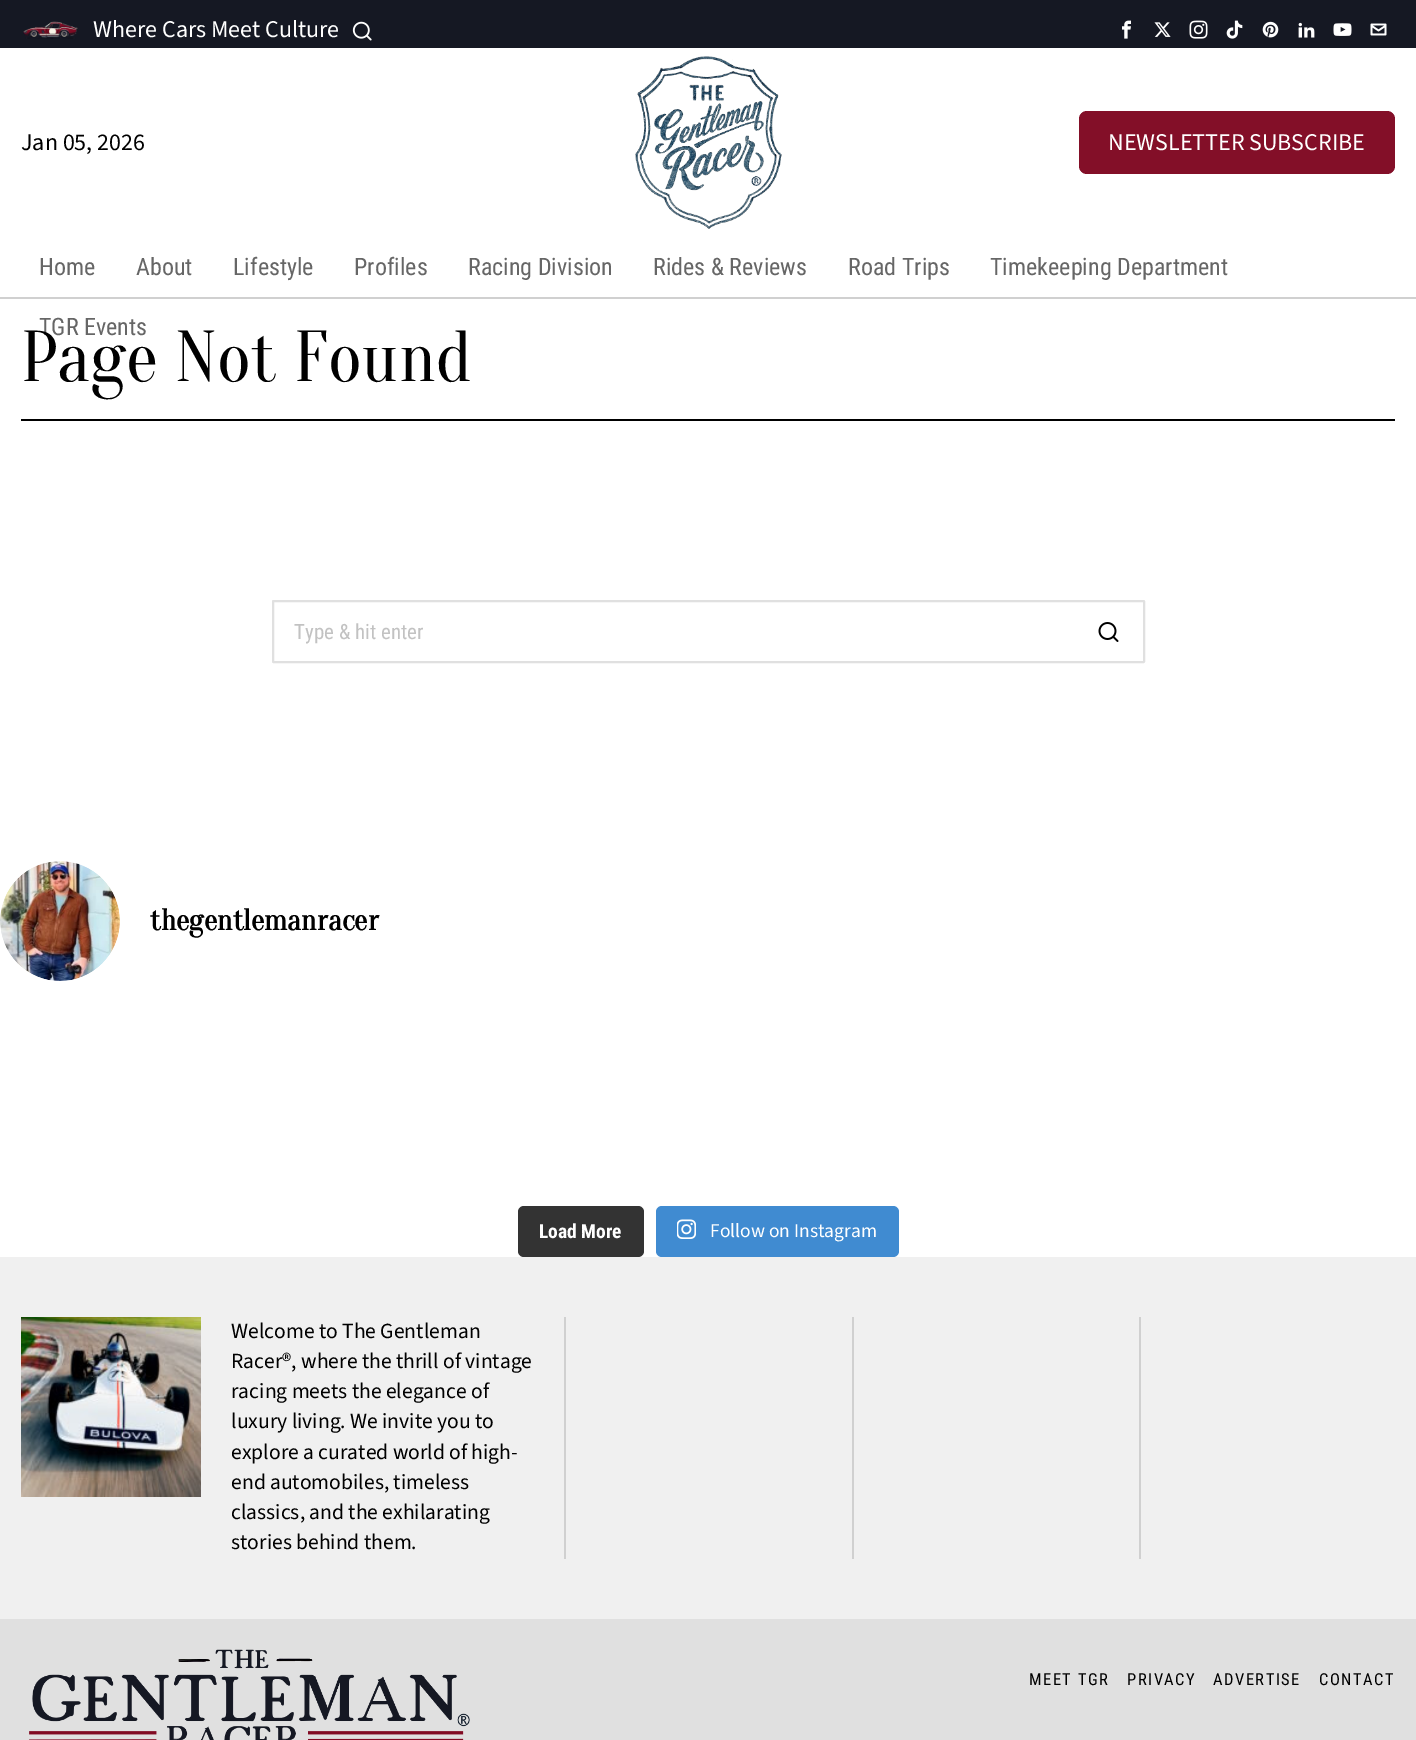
%!PS-Adobe-3.0
%%BoundingBox: 0 0 1416 1740
%%LanguageLevel: 3
%%Pages: 1
%%EndComments
%%BeginProlog
/rrect { 5 dict begin { /r /h /w /y /x } { exch def } forall
  x r add y moveto x w add y 2 copy h add r arct x w add y h add x 1 index r arct
  x y h add x y r arct x y 2 copy exch w add exch r arct closepath end } def
/drawimage { 5 dict begin { /h /w /y /x /name } { exch def } forall
  gsave x y translate w h scale
  w h 8 [w 0 0 h 0 0] name (r) file false 3 colorimage grestore end } def
%%EndProlog
%%BeginSetup
<< /PageSize [1416 1740] >> setpagedevice
%%EndSetup
%%Page: 1 1
0 1740 translate 1 -1 scale
4 setmiterlimit
1 setgray
0 0 1416 1740 rectfill
0.082 0.094 0.137 setrgbcolor
0 0 1416 48 rectfill
(images/1.raw) 23 21 55 18 drawimage
(images/2.raw) 352 21 20 20 drawimage
(images/3.raw) 1122 20 9 19 drawimage
(images/4.raw) 1154 22 17 15 drawimage
(images/5.raw) 1189 20 19 19 drawimage
(images/6.raw) 1226 20 17 19 drawimage
(images/7.raw) 1262 21 17 17 drawimage
(images/8.raw) 1298 22 17 16 drawimage
(images/9.raw) 1333 23 19 13 drawimage
(images/10.raw) 1370 23 17 13 drawimage
(images/11.raw) 635 56 147 173 drawimage
0.514 0.059 0.157 setrgbcolor
1079 111 316 63 8 rrect fill
0.816 setgray
0 297 1416 2 rectfill
0 setgray
21 419 1374 2 rectfill
0.878 setgray
2 setlinewidth
273 601 871 61 0.5 rrect stroke
(images/12.raw) 1098 622 21 20 drawimage
(images/13.raw) 0 861 120 120 drawimage
0.2 setgray
518 1206 126 51 6 rrect fill
0.251 0.545 0.82 setrgbcolor
656 1206 243 51 6 rrect fill
(images/14.raw) 677 1219 19 20 drawimage
0.941 setgray
0 1257 1416 362 rectfill
(images/15.raw) 21 1317 180 180 drawimage
0.816 setgray
564 1317 2 242 rectfill
852 1317 2 242 rectfill
1139 1317 2 242 rectfill
0.878 setgray
0 1619 1416 121 rectfill
(images/16.raw) 29 1649 441 91 drawimage
/SourceSans3-Regular [24 0 0 -24 0 0] selectfont
1 setgray
93 37 moveto (Where Cars Meet Culture) show
0 setgray
21 150 moveto (Jan 05, 2026) show
1 setgray
1108 150 moveto (NEWSLETTER SUBSCRIBE) show
/RobotoCondensed-Regular [24 0 0 -24 0 0] selectfont
0.4 setgray
39 275 moveto (Home) show
136 275 moveto (About) show
233 275 moveto (Lifestyle) show
354 275 moveto (Profiles) show
468 275 moveto (Racing Division) show
653 275 moveto (Rides & Reviews) show
848 275 moveto (Road Trips) show
990 275 moveto (Timekeeping Department) show
39 335 moveto (TGR Events) show
/Oranienbaum-Regular [72 0 0 -72 0 0] selectfont
0 setgray
21 381 moveto (Page Not Found) show
/RobotoCondensed-Regular [21 0 0 -21 0 0] selectfont
0.761 setgray
294 639 moveto (Type & hit enter) show
/Oranienbaum-Bold [30 0 0 -30 0 0] selectfont
0 setgray
150 930 moveto (thegentlemanracer) show
/RobotoCondensed-Bold [19.5 0 0 -19.5 0 0] selectfont
1 setgray
539 1238 moveto (Load More) show
/SourceSans3-Regular [19.5 0 0 -19.5 0 0] selectfont
710 1237 moveto (Follow on Instagram) show
/SourceSans3-Regular [21.6 0 0 -21.6 0 0] selectfont
0 setgray
231 1338 moveto (Welcome to The Gentleman) show
231 1368 moveto (Racer®, where the thrill of vintage) show
231 1398 moveto (racing meets the elegance of) show
231 1428 moveto (luxury living. We invite you to) show
231 1459 moveto (explore a curated world of high-) show
231 1489 moveto (end automobiles, timeless) show
231 1519 moveto (classics, and the exhilarating) show
231 1549 moveto (stories behind them.) show
/RobotoCondensed-Regular [16.5 0 0 -16.5 0 0] selectfont
1029 1685 moveto 1.5 0 (MEET TGR) ashow
1127 1685 moveto 1.5 0 (PRIVACY) ashow
1213 1685 moveto 1.5 0 (ADVERTISE) ashow
1319 1685 moveto 1.5 0 (CONTACT) ashow
showpage
%%EOF
